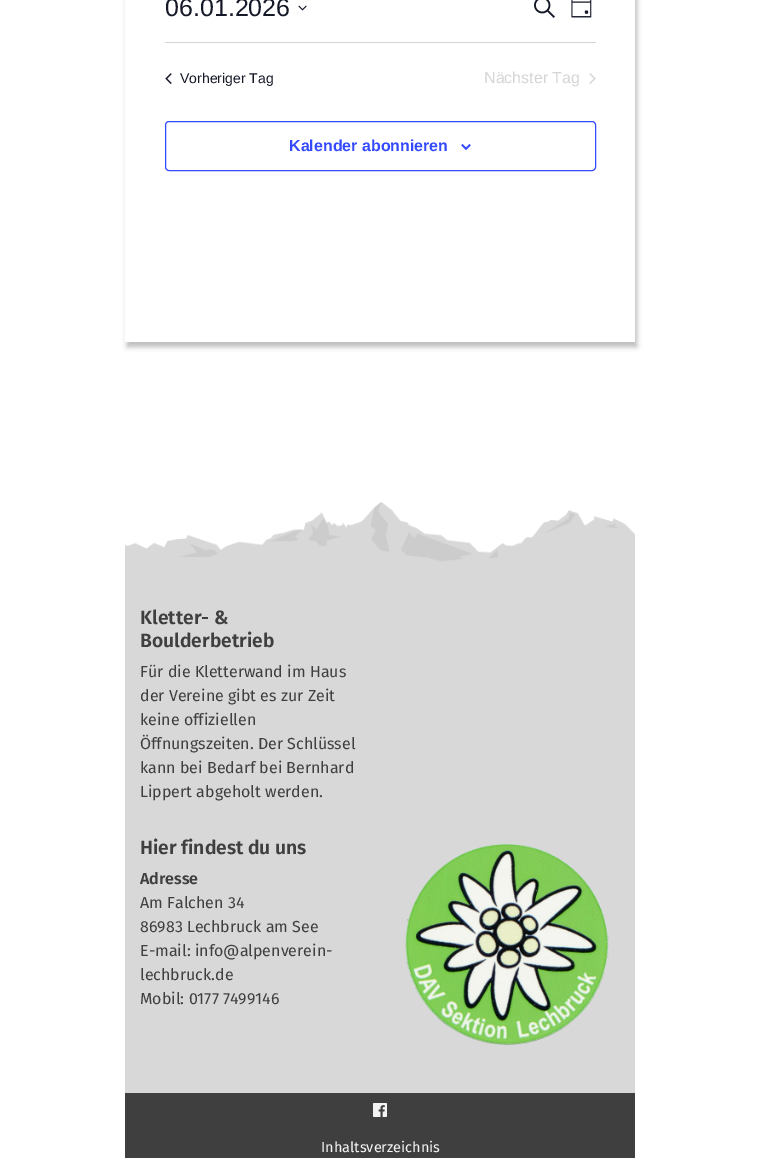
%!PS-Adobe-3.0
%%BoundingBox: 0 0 760 1158
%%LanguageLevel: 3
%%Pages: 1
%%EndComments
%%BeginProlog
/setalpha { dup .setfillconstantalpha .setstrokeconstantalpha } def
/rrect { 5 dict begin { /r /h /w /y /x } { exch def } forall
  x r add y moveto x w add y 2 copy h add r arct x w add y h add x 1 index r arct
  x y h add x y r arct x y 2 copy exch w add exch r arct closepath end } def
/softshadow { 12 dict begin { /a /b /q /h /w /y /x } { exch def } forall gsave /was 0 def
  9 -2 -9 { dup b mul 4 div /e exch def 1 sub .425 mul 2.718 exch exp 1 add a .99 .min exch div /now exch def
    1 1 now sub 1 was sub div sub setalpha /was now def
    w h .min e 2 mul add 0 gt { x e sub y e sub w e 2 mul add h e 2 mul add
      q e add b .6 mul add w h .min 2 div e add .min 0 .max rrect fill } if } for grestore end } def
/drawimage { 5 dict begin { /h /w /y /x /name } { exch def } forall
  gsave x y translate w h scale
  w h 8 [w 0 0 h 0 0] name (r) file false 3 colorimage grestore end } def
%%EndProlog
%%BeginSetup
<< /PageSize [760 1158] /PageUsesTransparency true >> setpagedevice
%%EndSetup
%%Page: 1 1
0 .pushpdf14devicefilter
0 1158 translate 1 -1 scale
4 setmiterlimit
1 setgray
0 0 760 1158 rectfill
gsave
newpath 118 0 moveto 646 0 lineto 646 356 lineto 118 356 lineto closepath 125 -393 moveto 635 -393 lineto 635 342 lineto 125 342 lineto closepath eoclip newpath
0 setgray
127 -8 510 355 0 2.5 0.25 softshadow
grestore
(images/1.raw) 298 5 9 6 drawimage
(images/2.raw) 534 0 21 18 drawimage
(images/3.raw) 571 0 21 18 drawimage
0.835 setgray
165 42 431 1 rectfill
(images/4.raw) 165 73 7 11 drawimage
(images/5.raw) 589 73 7 11 drawimage
0.2 0.29 1 setrgbcolor
165.5 121.5 430 49 3.5 rrect stroke
(images/6.raw) 461 144 10 6 drawimage
(images/7.raw) 125 502 510 64 drawimage
0.847 setgray
125 566 510 527 rectfill
(images/8.raw) 405 844 204 201 drawimage
0.247 setgray
125 1093 510 65 rectfill
(images/9.raw) 373 1103 14 14 drawimage
/LiberationSans-Regular [25 0 0 -25 0 0] selectfont
0.078 0.094 0.153 setrgbcolor
165 16 moveto (06.01.2026) show
/LiberationSans-Regular [14 0 0 -14 0 0] selectfont
180 83 moveto (Vorheriger Tag) show
/LiberationSans-Regular [16 0 0 -16 0 0] selectfont
0.835 setgray
484 83 moveto (Nächster Tag) show
/LiberationSans-Bold [16 0 0 -16 0 0] selectfont
0.2 0.29 1 setrgbcolor
289 151 moveto (Kalender abonnieren) show
/FiraSans-SemiBold [19.25 0 0 -19.25 0 0] selectfont
0.247 setgray
140 624 moveto (Kletter- &) show
140 647 moveto (Boulderbetrieb) show
/FiraSans-Regular [16 0 0 -16 0 0] selectfont
140 677 moveto (Für die Kletterwand im Haus) show
140 701 moveto (der Vereine gibt es zur Zeit) show
140 725 moveto (keine offiziellen) show
140 749 moveto (Öffnungszeiten. Der Schlüssel) show
140 773 moveto (kann bei Bedarf bei Bernhard) show
140 797 moveto (Lippert abgeholt werden.) show
/FiraSans-SemiBold [19.25 0 0 -19.25 0 0] selectfont
140 854 moveto (Hier findest du uns) show
/FiraSans-SemiBold [16 0 0 -16 0 0] selectfont
140 884 moveto (Adresse) show
/FiraSans-Regular [16 0 0 -16 0 0] selectfont
140 908 moveto (Am Falchen 34) show
140 932 moveto (86983 Lechbruck am See) show
140 956 moveto (E-mail: info@alpenverein-) show
140 980 moveto (lechbruck.de) show
140 1004 moveto (Mobil: 0177 7499146) show
/FiraSans-Regular [14.5 0 0 -14.5 0 0] selectfont
0.957 setgray
321 1152 moveto (Inhaltsverzeichnis) show
.poppdf14devicefilter showpage
%%EOF
